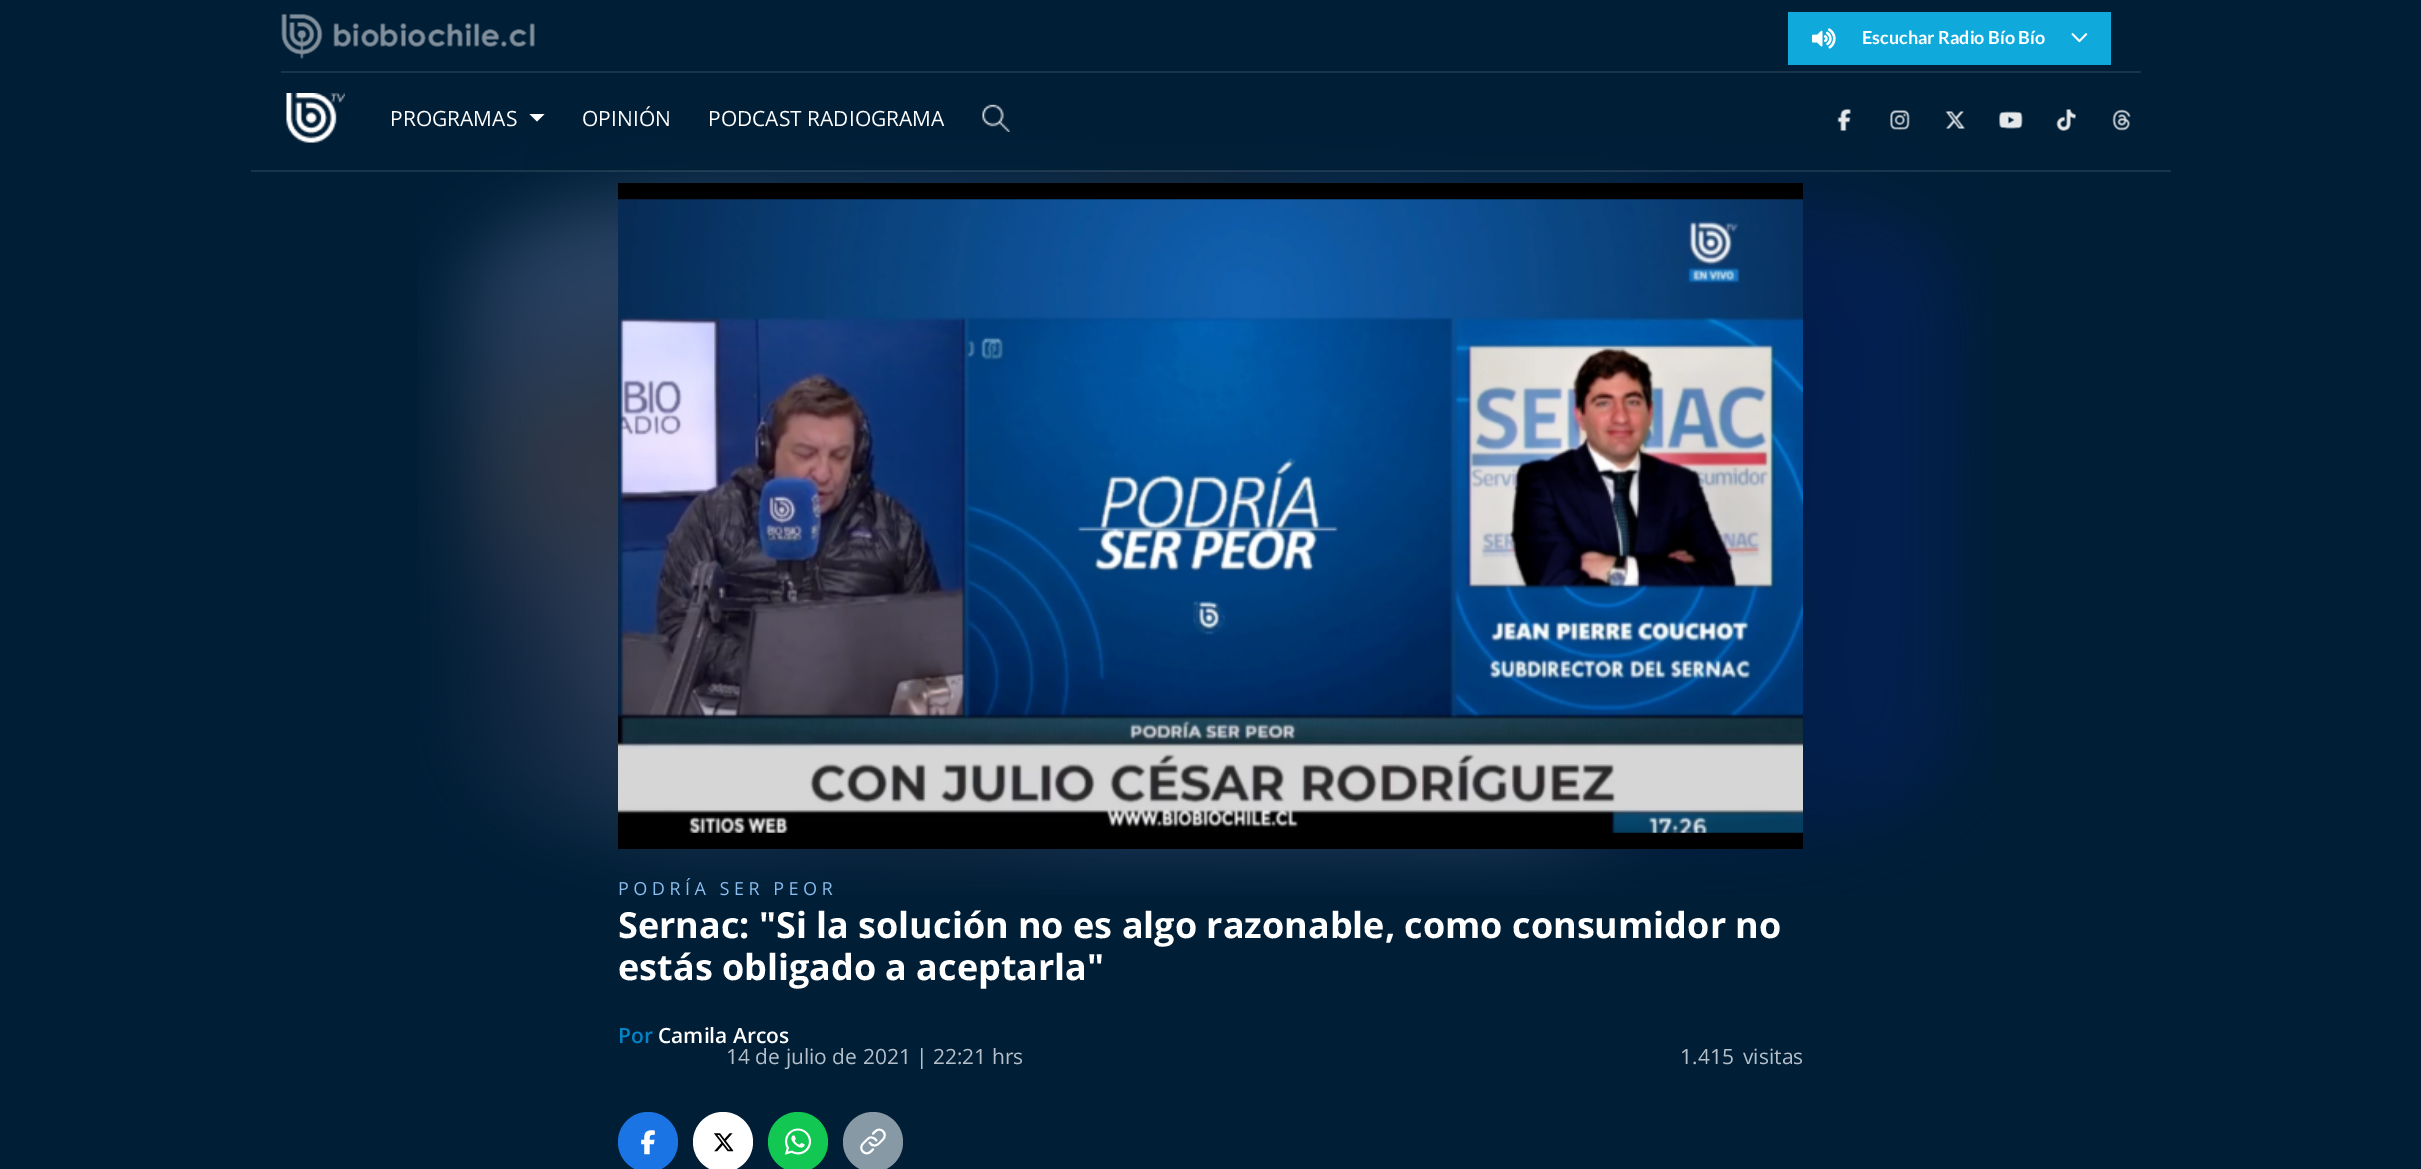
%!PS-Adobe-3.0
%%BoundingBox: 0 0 2421 1169
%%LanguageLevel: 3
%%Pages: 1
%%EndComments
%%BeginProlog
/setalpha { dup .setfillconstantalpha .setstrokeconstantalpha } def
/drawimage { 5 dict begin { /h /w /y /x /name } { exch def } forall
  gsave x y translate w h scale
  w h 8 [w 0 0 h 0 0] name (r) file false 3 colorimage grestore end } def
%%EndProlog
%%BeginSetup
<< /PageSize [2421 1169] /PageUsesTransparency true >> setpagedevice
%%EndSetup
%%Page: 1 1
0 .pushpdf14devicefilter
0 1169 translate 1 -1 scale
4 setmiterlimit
0 0.118 0.212 setrgbcolor
0 0 2421 1169 rectfill
0.102 0.208 0.29 setrgbcolor
281 71 1860 2 rectfill
(images/1.raw) 281 13 254 46 drawimage
0.059 0.667 0.859 setrgbcolor
1788 12 323 53 rectfill
(images/2.raw) 1812 28 24 21 drawimage
(images/3.raw) 2071 33 17 10 drawimage
(images/4.raw) 286 93 59 50 drawimage
1 setgray
newpath 529.5 114 moveto 544.5 114 lineto 537 121.5 lineto closepath fill
(images/5.raw) 982 104 28 28 drawimage
(images/6.raw) 1837 109 14 22 drawimage
(images/7.raw) 1890 110 20 20 drawimage
(images/8.raw) 1945 111 20 18 drawimage
(images/9.raw) 1999 111 24 18 drawimage
(images/10.raw) 2056 109 20 22 drawimage
(images/11.raw) 2112 109 19 22 drawimage
0.106 0.455 0.894 setrgbcolor
newpath 648 1142 30 0 360 arc closepath fill
(images/14.raw) 641 1130 14 25 drawimage
1 setgray
newpath 723 1142 30 0 360 arc closepath fill
(images/15.raw) 714 1133 20 19 drawimage
0.071 0.784 0.325 setrgbcolor
newpath 798 1142 30 0 360 arc closepath fill
(images/16.raw) 785 1128 27 27 drawimage
0.533 0.6 0.651 setrgbcolor
newpath 873 1142 30 0 360 arc closepath fill
(images/17.raw) 860 1128 26 27 drawimage
/Lato-Bold [18 0 0 -18 0 0] selectfont
1 setgray
1862 44 moveto (Escuchar Radio Bío Bío) show
/OpenSans-Regular [21 0 0 -21 0 0] selectfont
390 126 moveto (PROGRAMAS) show
582 126 moveto (OPINIÓN) show
708 126 moveto (PODCAST RADIOGRAMA) show
/OpenSans-Regular [18 0 0 -18 0 0] selectfont
0.565 0.776 0.973 setrgbcolor
618 895 moveto 4.5 0 (PODRÍA SER PEOR) ashow
(images/12.raw) 418 138 1576 757 drawimage
0.8 setalpha
0 0.118 0.212 setrgbcolor
524 138 1348 33 rectfill
0.1 setalpha
1 setgray
251 170 1920 2 rectfill
1 setalpha
(images/13.raw) 618 183 1185 666 drawimage
/OpenSans-Bold [36 0 0 -36 0 0] selectfont
618 938 moveto (Sernac: "Si la solución no es algo razonable, como consumidor no) show
618 980 moveto (estás obligado a aceptarla") show
/OpenSans-SemiBold [21 0 0 -21 0 0] selectfont
0.008 0.518 0.78 setrgbcolor
618 1043 moveto (Por) show
1 setgray
658 1043 moveto (Camila Arcos) show
/OpenSans-Regular [21 0 0 -21 0 0] selectfont
0.71 0.753 0.792 setrgbcolor
726 1064 moveto (14 de julio de 2021 | 22:21 hrs) show
1680 1064 moveto (1.415) show
1743 1064 moveto (visitas) show
.poppdf14devicefilter showpage
%%EOF
